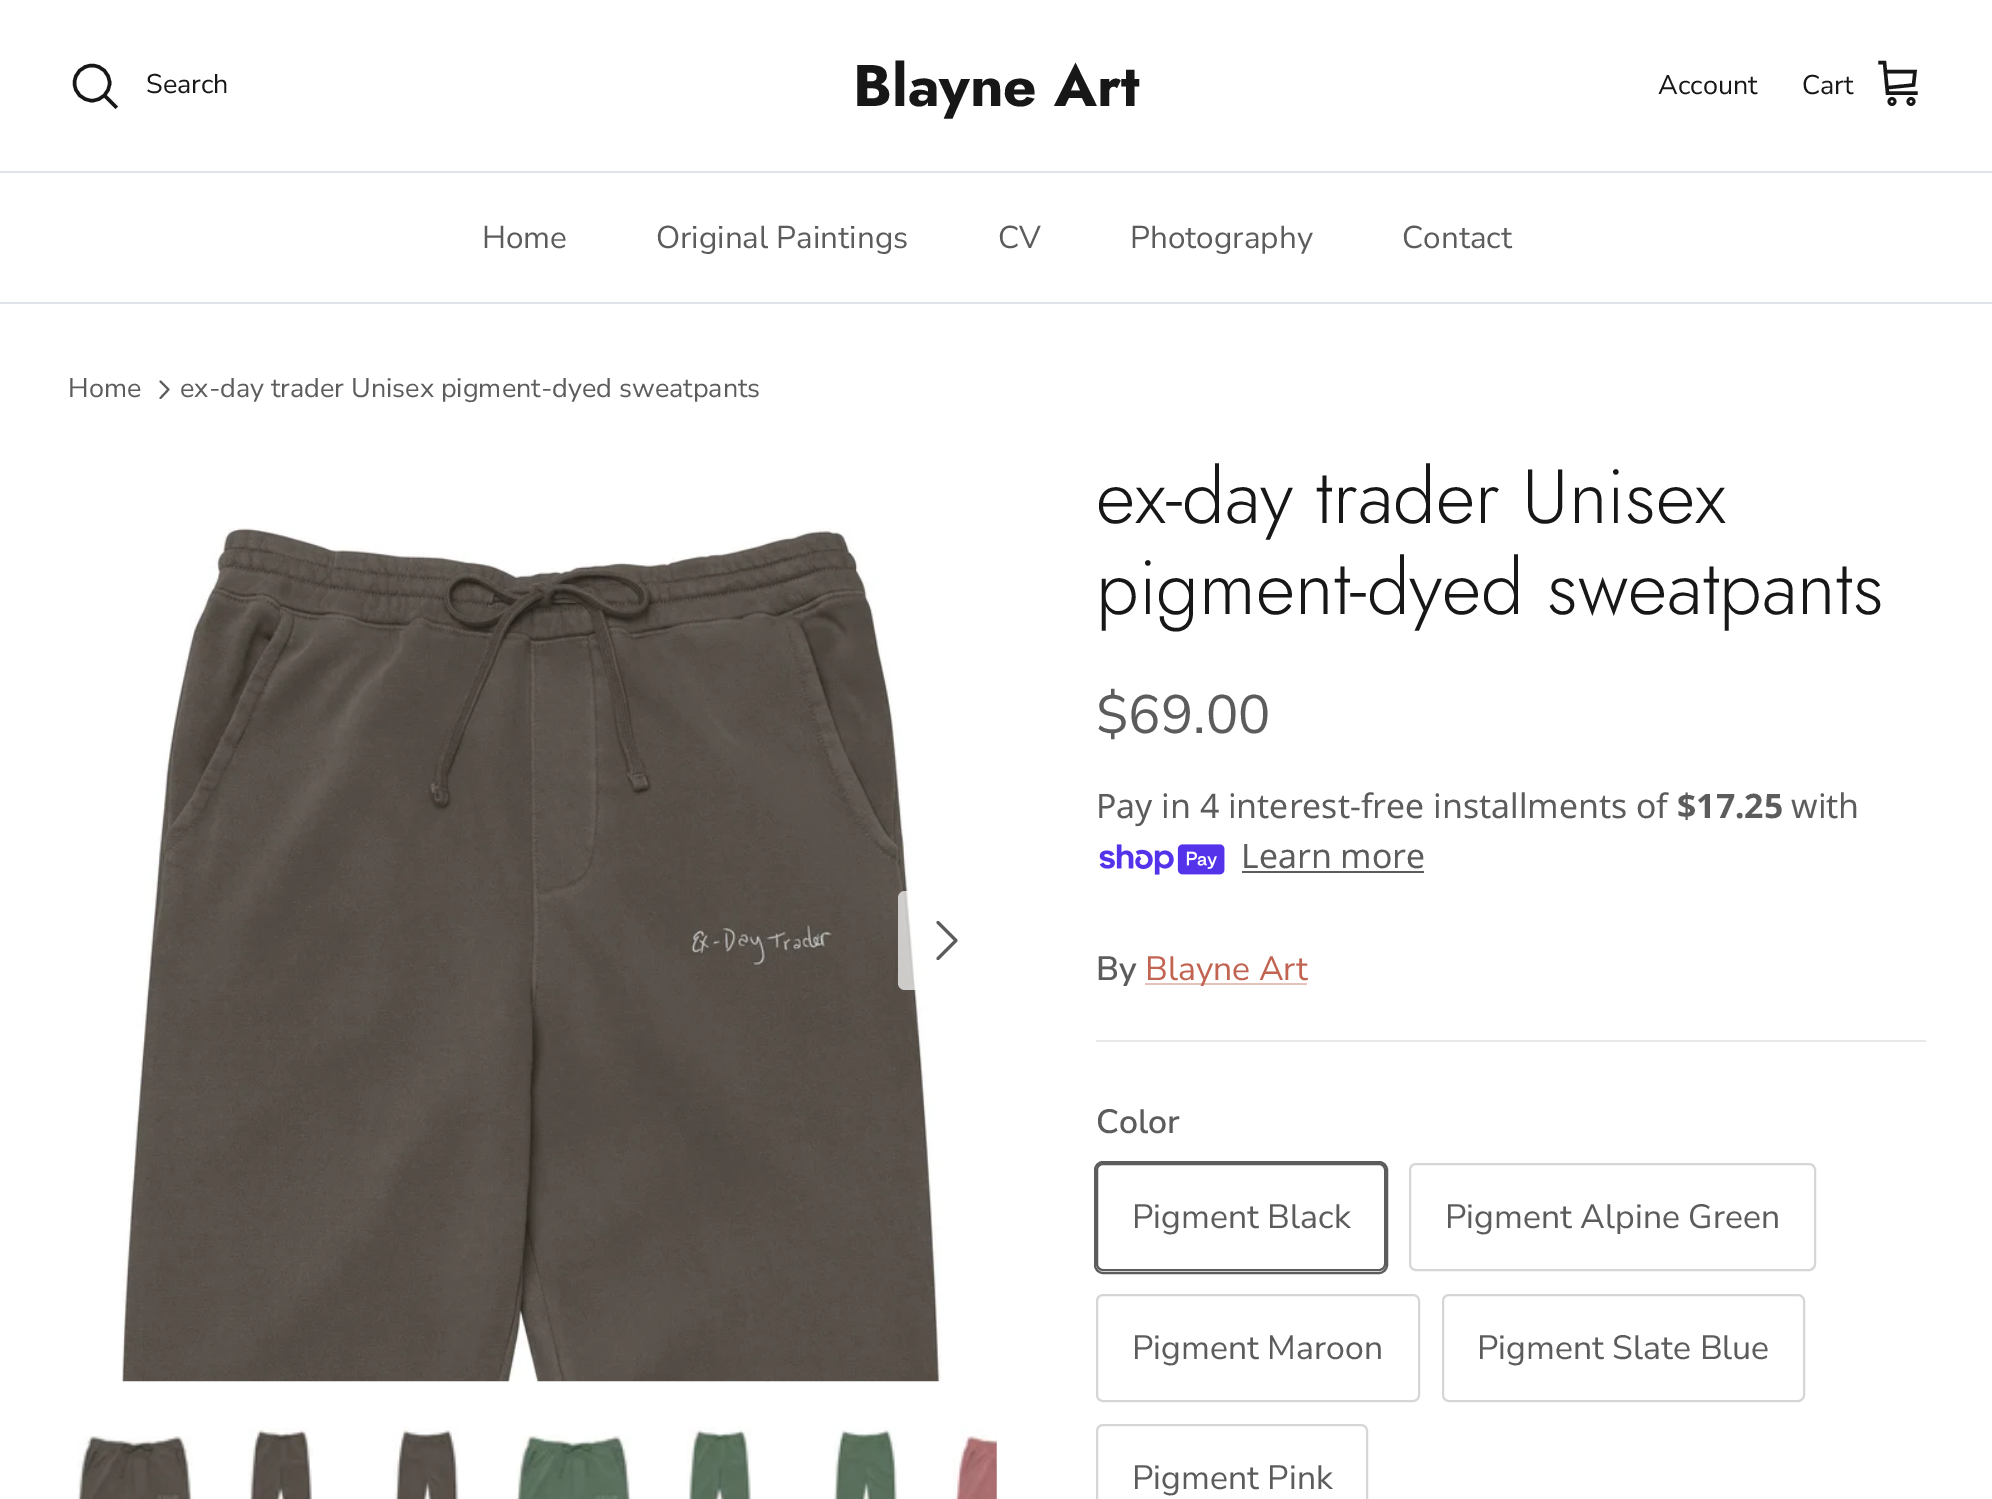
%!PS-Adobe-3.0
%%BoundingBox: 0 0 1992 1499
%%LanguageLevel: 3
%%Pages: 1
%%EndComments
%%BeginProlog
/setalpha { dup .setfillconstantalpha .setstrokeconstantalpha } def
/rrect { 5 dict begin { /r /h /w /y /x } { exch def } forall
  x r add y moveto x w add y 2 copy h add r arct x w add y h add x 1 index r arct
  x y h add x y r arct x y 2 copy exch w add exch r arct closepath end } def
/drawimage { 5 dict begin { /h /w /y /x /name } { exch def } forall
  gsave x y translate w h scale
  w h 8 [w 0 0 h 0 0] name (r) file false 3 colorimage grestore end } def
%%EndProlog
%%BeginSetup
<< /PageSize [1992 1499] /PageUsesTransparency true >> setpagedevice
%%EndSetup
%%Page: 1 1
0 .pushpdf14devicefilter
0 1499 translate 1 -1 scale
4 setmiterlimit
1 setgray
0 0 1992 1499 rectfill
0.875 0.89 0.91 setrgbcolor
0 171 1992 2 rectfill
0.09 setgray
3.4 setlinewidth
newpath 92 83 17.5 0 360 arc closepath stroke
2 setlinecap
newpath 105.5 96.5 moveto 115.5 106.5 lineto stroke
newpath 1880 62.5 moveto 1884.5 62.5 lineto 1887.5 93 lineto 1916 93 lineto 1886 71.5 moveto 1915 71.5 lineto 1913.5 85 lineto 1889 87.5 lineto stroke
2.8 setlinewidth
0 setlinecap
newpath 1892 101.5 3 0 360 arc closepath stroke
newpath 1911 101.5 3 0 360 arc closepath stroke
0.875 0.89 0.91 setrgbcolor
0 302 1992 2 rectfill
0.361 setgray
2 setlinewidth
1 setlinecap
1 setlinejoin
newpath 160.5 398 moveto 168.5 389.5 lineto 160.5 381.5 lineto stroke
(images/1.raw) 121 528 821 854 drawimage
0.7 setalpha
1 setgray
newpath 905 891 moveto 997 891 lineto 997 990 lineto 905 990 lineto 901 990 898 987 898 983 curveto 898 898 lineto 898 894 901 891 905 891 curveto closepath fill
1 setalpha
0.361 setgray
3 setlinewidth
newpath 938 958.5 moveto 956 940.5 lineto 938 922.5 lineto stroke
(images/2.raw) 77 1436 116 63 drawimage
(images/3.raw) 248 1427 65 72 drawimage
(images/4.raw) 393 1427 66 72 drawimage
(images/5.raw) 516 1435 116 64 drawimage
(images/6.raw) 686 1427 65 72 drawimage
(images/7.raw) 833 1427 64 72 drawimage
(images/8.raw) 953 1427 44 72 drawimage
(images/9.raw) 1099 844 126 31 drawimage
1242 871 182 2 rectfill
0.902 0.757 0.729 setrgbcolor
1145 983 162 2 rectfill
0.91 setgray
1096 1040 830 2 rectfill
0.361 setgray
2 setlinewidth
0 setlinecap
0 setlinejoin
1095 1162 292 111 8 rrect stroke
1 setgray
1097 1164 288 106 6 rrect gsave fill grestore
0.361 setgray
stroke
0.839 setgray
1410 1164 405 106 6 rrect stroke
1097 1295 322 106 6 rrect stroke
1443 1295 361 106 6 rrect stroke
1097 1425 270 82 6 rrect stroke
/NunitoSans-Regular [27 0 0 -27 0 0] selectfont
0.09 setgray
146 93 moveto (Search) show
/Jost-Bold [58.5 0 0 -58.5 0 0] selectfont
853 106 moveto (Blayne Art) show
/NunitoSans-Regular [27 0 0 -27 0 0] selectfont
1658 94 moveto (Account) show
1802 94 moveto (Cart) show
/NunitoSans-Regular [31.5 0 0 -31.5 0 0] selectfont
0.361 setgray
482 248 moveto (Home) show
656 248 moveto (Original Paintings) show
998 248 moveto (CV) show
1130 248 moveto (Photography) show
1402 248 moveto (Contact) show
/NunitoSans-Regular [27 0 0 -27 0 0] selectfont
68 397 moveto (Home) show
180 397 moveto (ex-day trader Unisex pigment-dyed sweatpants) show
/Jost-Light [76.5 0 0 -76.5 0 0] selectfont
0.09 setgray
1096 523 moveto (ex-day trader Unisex) show
1096 614 moveto (pigment-dyed sweatpants) show
/NunitoSans-Regular [54 0 0 -54 0 0] selectfont
0.361 setgray
1096 733 moveto ($69.00) show
/NotoSans-Regular [33.75 0 0 -33.75 0 0] selectfont
1096 818 moveto (Pay in 4 interest-free installments of) show
/NotoSans-Bold [33.75 0 0 -33.75 0 0] selectfont
1677 818 moveto ($17.25) show
/NotoSans-Regular [33.75 0 0 -33.75 0 0] selectfont
1791 818 moveto (with) show
1241 868 moveto (Learn more) show
/NunitoSans-SemiBold [33.75 0 0 -33.75 0 0] selectfont
1096 980 moveto (By) show
/NunitoSans-Regular [33.75 0 0 -33.75 0 0] selectfont
0.757 0.392 0.322 setrgbcolor
1145 980 moveto (Blayne Art) show
/NunitoSans-SemiBold [33.75 0 0 -33.75 0 0] selectfont
0.361 setgray
1096 1133 moveto (Color) show
/NunitoSans-Regular [33.75 0 0 -33.75 0 0] selectfont
1132 1228 moveto (Pigment Black) show
1445 1228 moveto (Pigment Alpine Green) show
1132 1359 moveto (Pigment Maroon) show
1477 1359 moveto (Pigment Slate Blue) show
1132 1489 moveto (Pigment Pink) show
.poppdf14devicefilter showpage
%%EOF
